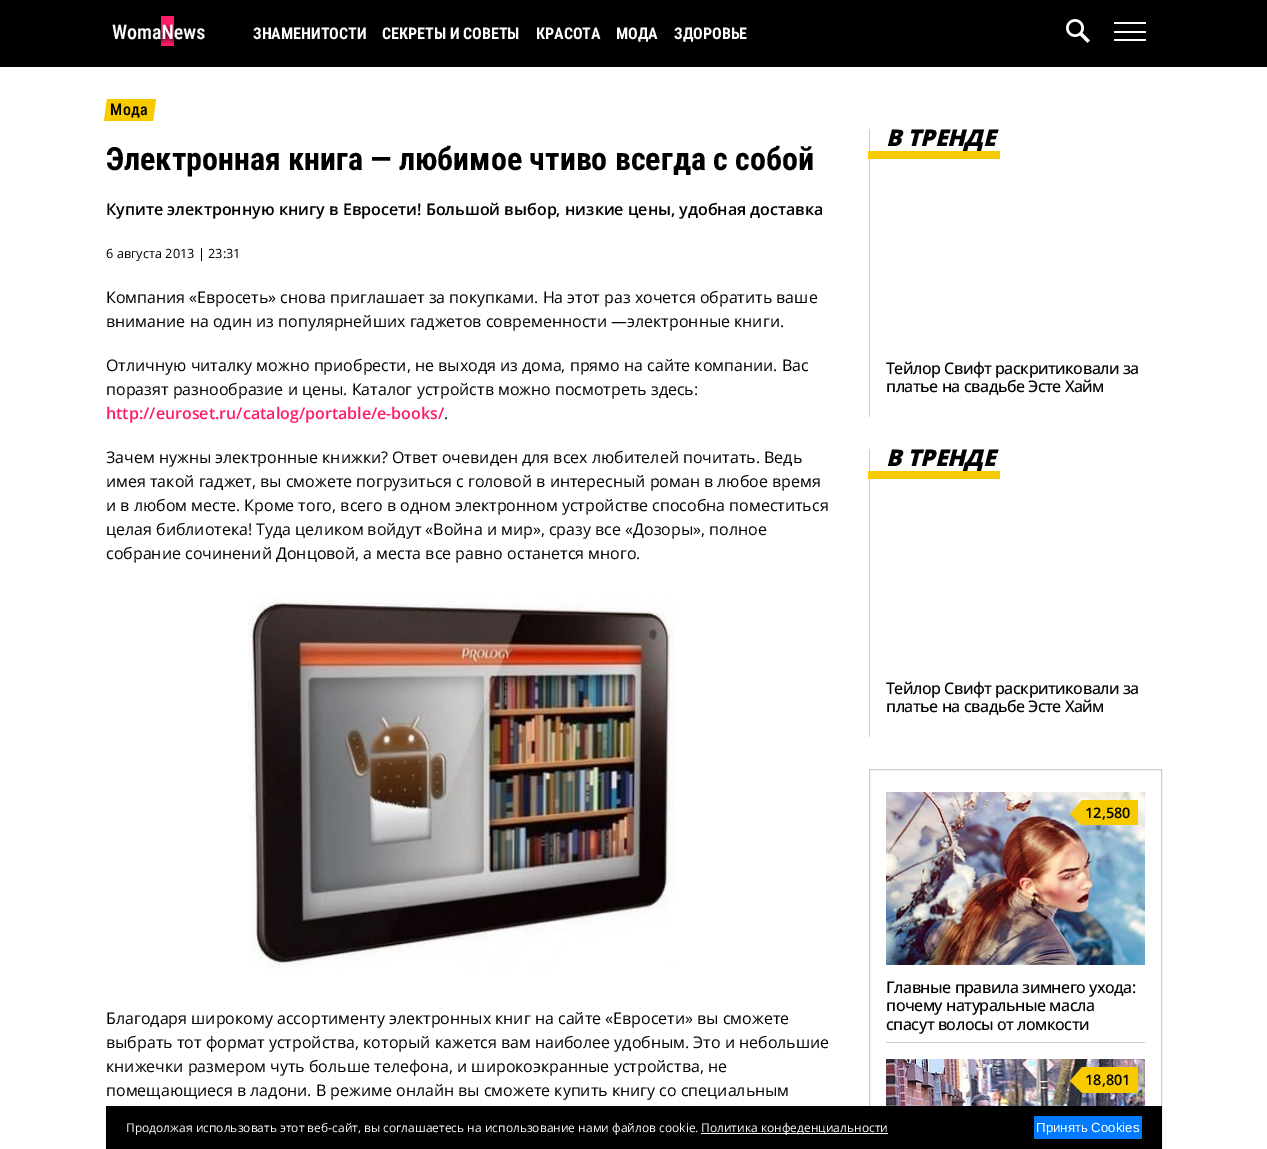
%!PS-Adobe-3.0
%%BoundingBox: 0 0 1267 1149
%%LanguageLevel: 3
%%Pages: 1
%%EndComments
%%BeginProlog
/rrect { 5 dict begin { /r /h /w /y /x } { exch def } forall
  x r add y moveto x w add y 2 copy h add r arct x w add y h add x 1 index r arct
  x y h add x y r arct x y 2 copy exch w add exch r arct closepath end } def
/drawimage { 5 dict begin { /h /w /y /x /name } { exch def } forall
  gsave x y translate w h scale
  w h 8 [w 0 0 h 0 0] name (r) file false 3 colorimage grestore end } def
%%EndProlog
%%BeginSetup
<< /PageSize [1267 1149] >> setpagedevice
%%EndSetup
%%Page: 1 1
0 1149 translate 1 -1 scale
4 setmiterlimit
1 setgray
0 0 1267 1149 rectfill
0 setgray
0 0 1267 67 rectfill
(images/1.raw) 112 16 93 30 drawimage
(images/2.raw) 1066 19 24 24 drawimage
1 setgray
1114 22 32 2 1 rrect fill
1114 31 32 2 1 rrect fill
1114 39 32 2 1 rrect fill
0.969 0.796 0 setrgbcolor
newpath 107 99 moveto 156 99 lineto 153 121 lineto 104 121 lineto closepath fill
(images/3.raw) 248 598 427 371 drawimage
0.8 setgray
869 129 1 288 rectfill
869 449 1 288 rectfill
869.5 769.5 292 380 rectstroke
(images/4.raw) 886 792 259 173 drawimage
0.969 0.796 0 setrgbcolor
1082 800 56 25 rectfill
newpath 1082 800 moveto 1082 826 lineto 1070 814 lineto closepath fill
0.8 setgray
886 1042 259 1 rectfill
(images/5.raw) 886 1059 259 47 drawimage
0.969 0.796 0 setrgbcolor
1082 1067 56 26 rectfill
newpath 1082 1067 moveto 1082 1093 lineto 1070 1081 lineto closepath fill
0 setgray
106 1106 1056 43 rectfill
1 setgray
701 1133 187 1 rectfill
0 0.482 1 setrgbcolor
1034 1116 108 23 rectfill
/RobotoCondensed-Bold [16 0 0 -16 0 0] selectfont
1 setgray
253 39 moveto (ЗНАМЕНИТОСТИ) show
382 39 moveto (СЕКРЕТЫ И СОВЕТЫ) show
536 39 moveto (КРАСОТА) show
616 39 moveto (МОДА) show
674 39 moveto (ЗДОРОВЬЕ) show
/RobotoCondensed-Medium [16 0 0 -16 0 0] selectfont
0 setgray
110 115 moveto 0.5 0 (Мода) ashow
/RobotoCondensed-Bold [32 0 0 -32 0 0] selectfont
106 170 moveto (Электронная книга — любимое чтиво всегда с собой) show
/OpenSans-SemiBold [16 0 0 -16 0 0] selectfont
106 215 moveto (Купите электронную книгу в Евросети! Большой выбор, низкие цены, удобная доставка) show
/OpenSans-Regular [12.75 0 0 -12.75 0 0] selectfont
106 258 moveto (6 августа 2013 | 23:31) show
/OpenSans-Regular [16 0 0 -16 0 0] selectfont
106 303 moveto (Компания «Евросеть» снова приглашает за покупками. На этот раз хочется обратить ваше) show
106 327 moveto (внимание на один из популярнейших гаджетов современности —электронные книги.) show
106 371 moveto (Отличную читалку можно приобрести, не выходя из дома, прямо на сайте компании. Вас) show
106 395 moveto (поразят разнообразие и цены. Каталог устройств можно посмотреть здесь:) show
/OpenSans-SemiBold [16 0 0 -16 0 0] selectfont
1 0.106 0.404 setrgbcolor
106 419 moveto (http://euroset.ru/catalog/portable/e-books/) show
/OpenSans-Regular [16 0 0 -16 0 0] selectfont
0 setgray
444 419 moveto (.) show
106 463 moveto (Зачем нужны электронные книжки? Ответ очевиден для всех любителей почитать. Ведь) show
106 487 moveto (имея такой гаджет, вы сможете погрузиться с головой в интересный роман в любое время) show
106 511 moveto (и в любом месте. Кроме того, всего в одном электронном устройстве способна поместиться) show
106 535 moveto (целая библиотека! Туда целиком войдут «Война и мир», сразу все «Дозоры», полное) show
106 559 moveto (собрание сочинений Донцовой, а места все равно останется много.) show
106 1024 moveto (Благодаря широкому ассортименту электронных книг на сайте «Евросети» вы сможете) show
106 1048 moveto (выбрать тот формат устройства, который кажется вам наиболее удобным. Это и небольшие) show
106 1072 moveto (книжечки размером чуть больше телефона, и широкоэкранные устройства, не) show
106 1096 moveto (помещающиеся в ладони. В режиме онлайн вы сможете купить книгу со специальным) show
/OpenSans-ExtraBoldItalic [23 0 0 -23 0 0] selectfont
886 146 moveto -0.25 0 (В ТРЕНДЕ) ashow
0.969 0.796 0 setrgbcolor
868 151 132 8 rectfill
/OpenSans-Medium [16 0 0 -16 0 0] selectfont
0 setgray
886 374 moveto -0.5 0 (Тейлор Свифт раскритиковали за) ashow
886 392 moveto -0.5 0 (платье на свадьбе Эсте Хайм) ashow
/OpenSans-ExtraBoldItalic [23 0 0 -23 0 0] selectfont
886 466 moveto -0.25 0 (В ТРЕНДЕ) ashow
0.969 0.796 0 setrgbcolor
868 471 132 8 rectfill
/OpenSans-Medium [16 0 0 -16 0 0] selectfont
0 setgray
886 694 moveto -0.5 0 (Тейлор Свифт раскритиковали за) ashow
886 712 moveto -0.5 0 (платье на свадьбе Эсте Хайм) ashow
/OpenSans-SemiBold [14.5 0 0 -14.5 0 0] selectfont
1085 818 moveto (12,580) show
/OpenSans-Medium [16 0 0 -16 0 0] selectfont
886 993 moveto -0.5 0 (Главные правила зимнего ухода:) ashow
886 1011 moveto -0.5 0 (почему натуральные масла) ashow
886 1030 moveto -0.5 0 (спасут волосы от ломкости) ashow
/OpenSans-SemiBold [14.5 0 0 -14.5 0 0] selectfont
1085 1085 moveto (18,801) show
/OpenSans-Regular [12 0 0 -12 0 0] selectfont
1 setgray
126 1132 moveto (Продолжая использовать этот веб-сайт, вы соглашаетесь на использование нами файлов cookie.) show
701 1132 moveto (Политика конфеденциальности) show
/LiberationSans-Regular [13.25 0 0 -13.25 0 0] selectfont
1036 1132 moveto (Принять Cookies) show
showpage
%%EOF
